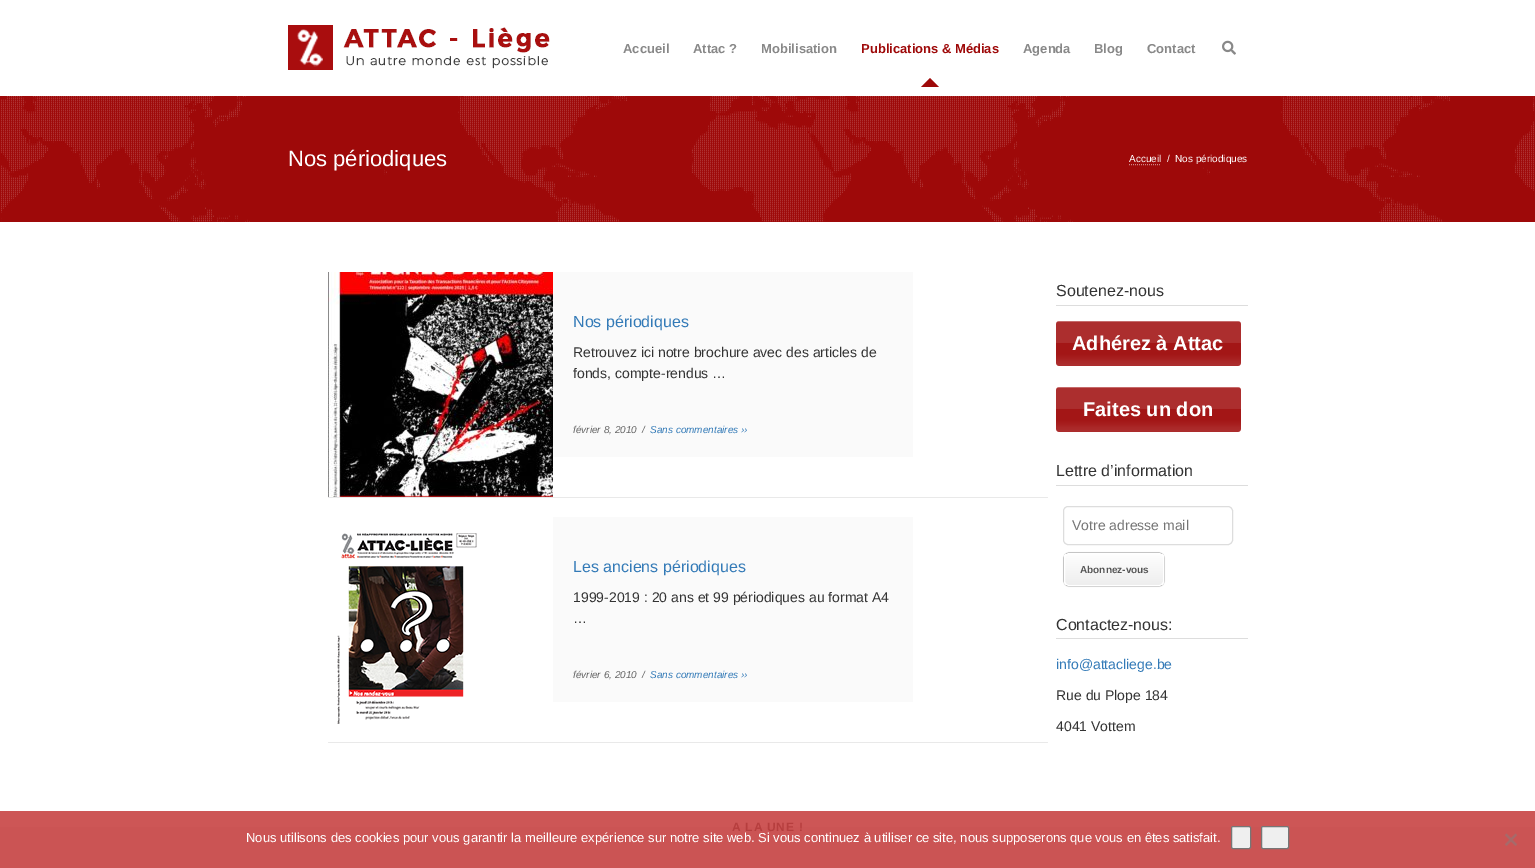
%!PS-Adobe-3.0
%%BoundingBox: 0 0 1535 868
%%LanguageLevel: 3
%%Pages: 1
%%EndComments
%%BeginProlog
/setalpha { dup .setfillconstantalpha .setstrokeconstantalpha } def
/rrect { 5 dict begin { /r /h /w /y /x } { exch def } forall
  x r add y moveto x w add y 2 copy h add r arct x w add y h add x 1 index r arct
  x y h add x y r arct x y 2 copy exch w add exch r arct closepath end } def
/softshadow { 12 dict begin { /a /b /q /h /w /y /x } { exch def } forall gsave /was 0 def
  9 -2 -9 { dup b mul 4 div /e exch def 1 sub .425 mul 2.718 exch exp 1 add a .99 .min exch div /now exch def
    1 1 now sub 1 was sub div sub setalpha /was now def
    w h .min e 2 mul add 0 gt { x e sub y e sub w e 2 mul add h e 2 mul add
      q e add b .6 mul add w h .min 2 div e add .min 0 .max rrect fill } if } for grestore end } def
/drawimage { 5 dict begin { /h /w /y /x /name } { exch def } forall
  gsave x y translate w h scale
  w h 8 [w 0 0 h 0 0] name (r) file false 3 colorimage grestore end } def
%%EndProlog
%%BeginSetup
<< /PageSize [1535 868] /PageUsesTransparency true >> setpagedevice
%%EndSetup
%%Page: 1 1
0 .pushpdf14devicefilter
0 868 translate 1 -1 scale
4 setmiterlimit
1 setgray
0 0 1535 868 rectfill
0.804 0.337 0.337 setrgbcolor
0 811 1535 16 rectfill
(images/1.raw) 288 25 262 45 drawimage
0.62 0.035 0.035 setrgbcolor
newpath 939 87 moveto 921 87 lineto 930 78 lineto closepath fill
(images/2.raw) 1222 40 14 15 drawimage
0 96 1535 126 rectfill
(images/3.raw) 1 96 1533 126 drawimage
0.812 0.518 0.518 setrgbcolor
[1 1] 0 setdash
newpath 1129 164.5 moveto 1161 164.5 lineto stroke
gsave
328 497 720 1 rectclip
0 setgray
328 273 720 225 0 0.5 0.1 softshadow
grestore
(images/4.raw) 328 272 225 225 drawimage
0.98 setgray
553 272 360 185 rectfill
gsave
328 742 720 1 rectclip
0 setgray
328 518 720 225 0 0.5 0.1 softshadow
grestore
(images/5.raw) 337 533 140 191 drawimage
553 517 360 185 rectfill
0.867 setgray
1056 305 192 1 rectfill
0.62 0.035 0.035 setrgbcolor
1056 321 185 45 3 rrect fill
(images/6.raw) 1056 321 185 45 drawimage
1056 387 185 45 3 rrect fill
(images/6.raw) 1056 387 185 45 drawimage
0.867 setgray
1056 485 192 1 rectfill
[] 0 setdash
1063.5 506.5 169 38 4.5 rrect stroke
0.133 setgray
1064 553 100 33 5 0.5 1 softshadow
gsave
1064 553 100 33 5 rrect clip newpath
gsave newpath 1064 554 moveto 1164 554 lineto 1164 585 lineto 1064 585 lineto closepath clip newpath
<< /ShadingType 2 /ColorSpace /DeviceRGB /Coords [1065 554 1065 585] /Extend [true true] /Function << /FunctionType 2 /Domain [0 1] /C0 [0.996 0.996 0.996] /C1 [0.933 0.933 0.933] /N 1 >> >> shfill grestore
grestore
1 setgray
1064.5 553.5 99 32 4.5 rrect stroke
0.867 setgray
1056 638 192 1 rectfill
0.796 0.329 0.329 setrgbcolor
0 827 1535 41 rectfill
0.937 setgray
1231.5 826.5 19 22 1.5 rrect gsave fill grestore
0.463 setgray
stroke
0.937 setgray
1261.5 826.5 27 22 1.5 rrect gsave fill grestore
0.463 setgray
stroke
0.651 0.416 0.416 setrgbcolor
newpath 1515.5 833.5 moveto 1517 835 lineto 1506.5 846 lineto 1505 844.5 lineto closepath fill
newpath 1505 835 moveto 1506.5 833.5 lineto 1517 844.5 lineto 1515.5 846 lineto closepath fill
/LiberationSans-Bold [13 0 0 -13 0 0] selectfont
0.533 setgray
623 53 moveto (Accueil) show
693 53 moveto (Attac ?) show
761 53 moveto (Mobilisation) show
0.62 0.035 0.035 setrgbcolor
861 53 moveto (Publications & Médias) show
0.533 setgray
1023 53 moveto (Agenda) show
1094 53 moveto (Blog) show
1147 53 moveto (Contact) show
/LiberationSans-Regular [22 0 0 -22 0 0] selectfont
1 setgray
288 166 moveto (Nos périodiques) show
/LiberationSans-Regular [10 0 0 -10 0 0] selectfont
1129 162 moveto (Accueil) show
1167 162 moveto (/) show
1175 162 moveto (Nos périodiques) show
/LiberationSans-Regular [16 0 0 -16 0 0] selectfont
0.2 0.478 0.718 setrgbcolor
573 327 moveto (Nos périodiques) show
/LiberationSans-Regular [14 0 0 -14 0 0] selectfont
0.2 setgray
573 357 moveto (Retrouvez ici notre brochure avec des articles de) show
573 378 moveto (fonds, compte-rendus …) show
/LiberationSans-Italic [10 0 0 -10 0 0] selectfont
0.4 setgray
573 433 moveto (février 8, 2010  /) show
0.2 0.478 0.718 setrgbcolor
650 433 moveto (Sans commentaires ››) show
/LiberationSans-Regular [16 0 0 -16 0 0] selectfont
573 572 moveto (Les anciens périodiques) show
/LiberationSans-Regular [14 0 0 -14 0 0] selectfont
0.2 setgray
573 602 moveto (1999-2019 : 20 ans et 99 périodiques au format A4) show
573 623 moveto (…) show
/LiberationSans-Italic [10 0 0 -10 0 0] selectfont
0.4 setgray
573 678 moveto (février 6, 2010  /) show
0.2 0.478 0.718 setrgbcolor
650 678 moveto (Sans commentaires ››) show
/LiberationSans-Regular [16 0 0 -16 0 0] selectfont
0.2 setgray
1056 296 moveto (Soutenez-nous) show
/LiberationSans-Bold [20 0 0 -20 0 0] selectfont
1 setgray
1072 350 moveto (Adhérez à Attac) show
1083 416 moveto (Faites un don) show
/LiberationSans-Regular [16 0 0 -16 0 0] selectfont
0.2 setgray
1056 476 moveto (Lettre d’information) show
/LiberationSans-Regular [14 0 0 -14 0 0] selectfont
0.459 setgray
1072 530 moveto (Votre adresse mail) show
/LiberationSans-Bold [10 0 0 -10 0 0] selectfont
0.333 setgray
1080 573 moveto (Abonnez-vous) show
/LiberationSans-Regular [16 0 0 -16 0 0] selectfont
0.2 setgray
1056 630 moveto (Contactez-nous:) show
/LiberationSans-Regular [14 0 0 -14 0 0] selectfont
0.2 0.478 0.718 setrgbcolor
1056 669 moveto (info@attacliege.be) show
0.2 setgray
1056 700 moveto (Rue du Plope 184) show
1056 731 moveto (4041 Vottem) show
/LiberationSans-Bold [12 0 0 -12 0 0] selectfont
0.714 0.243 0.243 setrgbcolor
732 831 moveto 0.75 0 (A LA UNE !) ashow
/LiberationSans-Regular [13 0 0 -13 0 0] selectfont
1 setgray
246 842 moveto (Nous utilisons des cookies pour vous garantir la meilleure expérience sur notre site web. Si vous continuez à utiliser ce site, nous supposerons que vous en êtes satisfait.) show
.poppdf14devicefilter showpage
%%EOF
